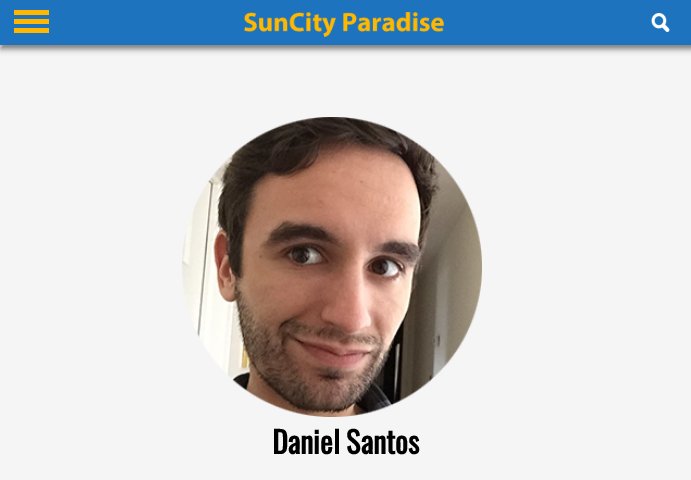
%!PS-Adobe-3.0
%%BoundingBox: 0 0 691 480
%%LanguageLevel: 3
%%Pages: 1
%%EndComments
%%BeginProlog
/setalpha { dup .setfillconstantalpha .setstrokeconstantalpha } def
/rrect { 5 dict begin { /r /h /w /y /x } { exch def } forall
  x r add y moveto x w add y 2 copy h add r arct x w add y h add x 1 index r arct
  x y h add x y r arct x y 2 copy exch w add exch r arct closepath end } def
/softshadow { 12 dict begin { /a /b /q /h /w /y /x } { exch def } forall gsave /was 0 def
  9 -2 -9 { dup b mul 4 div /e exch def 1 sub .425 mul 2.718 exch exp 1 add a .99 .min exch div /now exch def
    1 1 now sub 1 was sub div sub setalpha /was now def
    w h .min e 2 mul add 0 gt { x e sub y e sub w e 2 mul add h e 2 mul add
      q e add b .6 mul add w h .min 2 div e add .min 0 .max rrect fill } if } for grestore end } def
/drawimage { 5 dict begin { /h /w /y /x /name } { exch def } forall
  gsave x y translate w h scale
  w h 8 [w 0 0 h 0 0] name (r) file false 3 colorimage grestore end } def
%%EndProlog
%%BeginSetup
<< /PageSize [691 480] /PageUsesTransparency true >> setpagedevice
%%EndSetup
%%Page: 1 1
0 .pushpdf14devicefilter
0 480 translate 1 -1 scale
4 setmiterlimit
0.961 setgray
0 0 691 480 rectfill
0 setgray
1 2 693 47 0 3 0.5 softshadow
0.118 0.451 0.745 setrgbcolor
0 0 691 45 rectfill
(images/1.raw) 14 10 35 23 drawimage
(images/2.raw) 244 12 200 25 drawimage
(images/3.raw) 651 13 19 19 drawimage
(images/4.raw) 182 117 300 300 drawimage
/Oswald-Bold [30 0 0 -30 0 0] selectfont
0 setgray
272 454 moveto (Daniel Santos) show
.poppdf14devicefilter showpage
%%EOF
